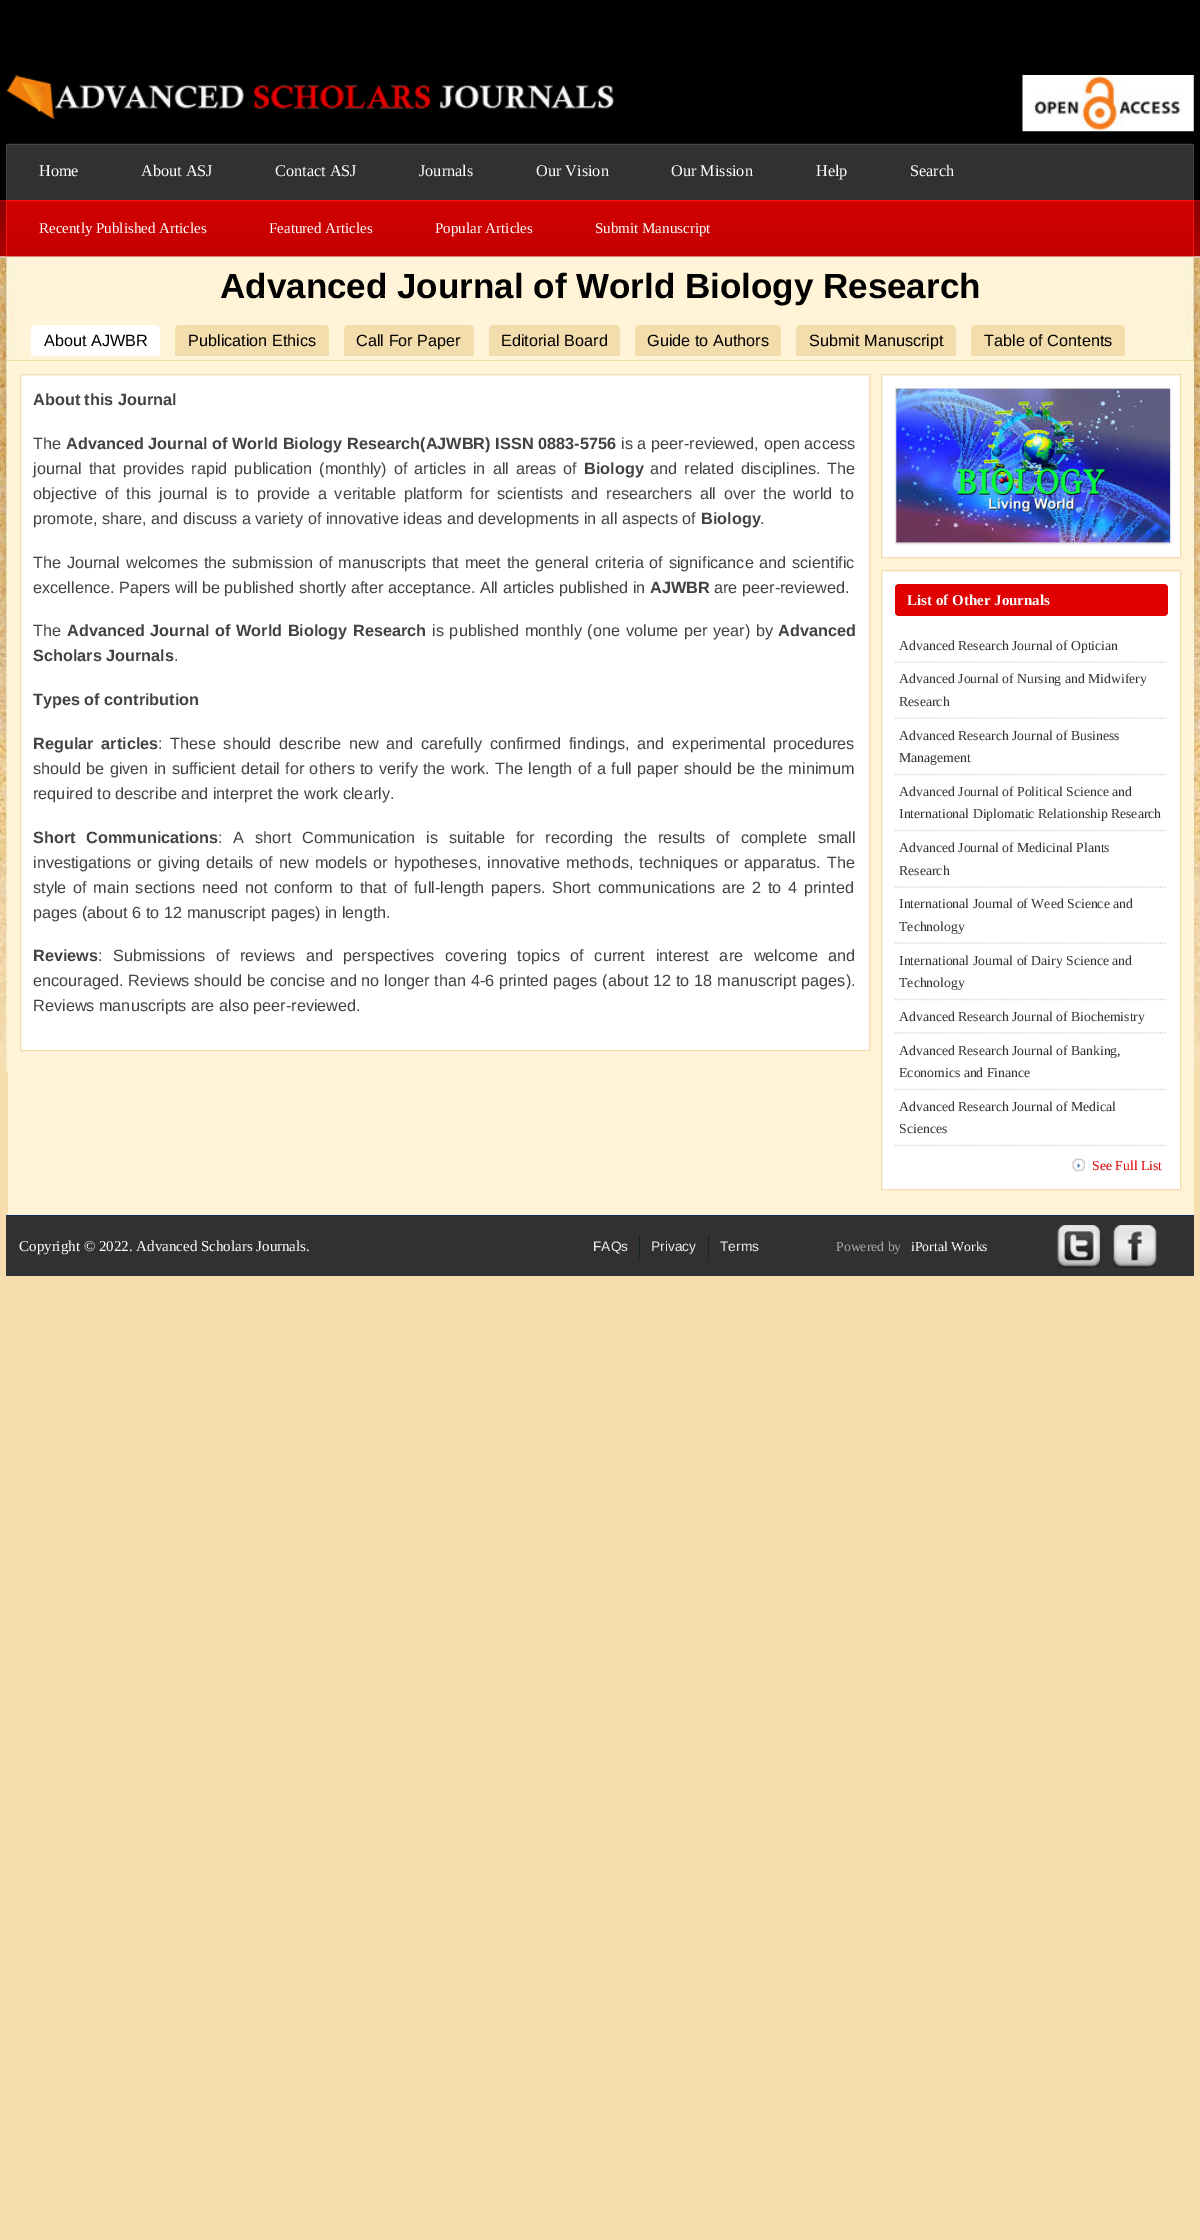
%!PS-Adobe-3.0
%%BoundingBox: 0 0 1200 2240
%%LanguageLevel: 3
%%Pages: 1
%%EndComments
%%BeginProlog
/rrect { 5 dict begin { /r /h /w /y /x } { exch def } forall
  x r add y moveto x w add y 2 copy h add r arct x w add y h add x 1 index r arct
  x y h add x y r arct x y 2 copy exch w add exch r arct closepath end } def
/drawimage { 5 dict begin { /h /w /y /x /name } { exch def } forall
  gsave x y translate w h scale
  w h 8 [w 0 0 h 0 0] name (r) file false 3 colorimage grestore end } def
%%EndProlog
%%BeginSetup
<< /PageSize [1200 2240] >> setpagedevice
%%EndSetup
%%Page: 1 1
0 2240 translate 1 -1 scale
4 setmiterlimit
0.965 0.867 0.682 setrgbcolor
0 0 1200 2240 rectfill
(images/1.raw) 0 256 1200 816 drawimage
(images/2.raw) 0 0 1200 257 drawimage
(images/3.raw) 6 75 608 44 drawimage
(images/4.raw) 1022 75 172 57 drawimage
0.192 setgray
7 145 1186 55 rectfill
(images/5.raw) 6 143 1188 2 drawimage
0.271 setgray
1193 144 1 56 rectfill
6 144 1 56 rectfill
(images/6.raw) 6 200 1188 57 drawimage
0.976 0.067 0.067 setrgbcolor
1193 200 1 56 rectfill
6 200 1 56 rectfill
0.953 0.867 0.675 setrgbcolor
6 360 1188 1 rectfill
1 setgray
newpath 36 325 moveto 155 325 lineto 158 325 160 327 160 330 curveto 160 356 lineto 31 356 lineto 31 330 lineto 31 327 33 325 36 325 curveto closepath fill
0.953 0.867 0.675 setrgbcolor
newpath 180 325 moveto 324 325 lineto 327 325 329 327 329 330 curveto 329 356 lineto 175 356 lineto 175 330 lineto 175 327 177 325 180 325 curveto closepath fill
newpath 349 325 moveto 469 325 lineto 472 325 474 327 474 330 curveto 474 356 lineto 344 356 lineto 344 330 lineto 344 327 346 325 349 325 curveto closepath fill
newpath 494 325 moveto 615 325 lineto 618 325 620 327 620 330 curveto 620 356 lineto 489 356 lineto 489 330 lineto 489 327 491 325 494 325 curveto closepath fill
newpath 640 325 moveto 776 325 lineto 779 325 781 327 781 330 curveto 781 356 lineto 635 356 lineto 635 330 lineto 635 327 637 325 640 325 curveto closepath fill
newpath 801 325 moveto 951 325 lineto 954 325 956 327 956 330 curveto 956 356 lineto 796 356 lineto 796 330 lineto 796 327 798 325 801 325 curveto closepath fill
newpath 976 325 moveto 1120 325 lineto 1123 325 1125 327 1125 330 curveto 1125 356 lineto 971 356 lineto 971 330 lineto 971 327 973 325 976 325 curveto closepath fill
1 0.953 0.847 setrgbcolor
8 361 1186 854 rectfill
1 setgray
newpath 20.5 374.5 moveto 869.5 374.5 lineto 869.5 1050.5 lineto 20.5 1050.5 lineto closepath gsave fill grestore
0.953 0.867 0.675 setrgbcolor
stroke
1 setgray
newpath 881.5 374.5 moveto 1180.5 374.5 lineto 1180.5 557.5 lineto 881.5 557.5 lineto closepath gsave fill grestore
0.953 0.867 0.675 setrgbcolor
stroke
0.882 setgray
895.5 388.5 275 155 rectstroke
(images/7.raw) 896 388 274 155 drawimage
1 setgray
newpath 881.5 570.5 moveto 1180.5 570.5 lineto 1180.5 1189.5 lineto 881.5 1189.5 lineto closepath gsave fill grestore
0.953 0.867 0.675 setrgbcolor
stroke
0.878 0 0 setrgbcolor
895 584 273 32 4 rrect fill
0.843 setgray
1.2 setlinewidth
[1.25 1.25] 0 setdash
newpath 895 662 moveto 1167.5 662 lineto stroke
newpath 895 718 moveto 1167.5 718 lineto stroke
newpath 895 774.5 moveto 1167.5 774.5 lineto stroke
newpath 895 830.5 moveto 1167.5 830.5 lineto stroke
newpath 895 887 moveto 1167.5 887 lineto stroke
newpath 895 943 moveto 1167.5 943 lineto stroke
newpath 895 999.5 moveto 1167.5 999.5 lineto stroke
newpath 895 1033 moveto 1167.5 1033 lineto stroke
newpath 895 1089.5 moveto 1167.5 1089.5 lineto stroke
newpath 895 1145.5 moveto 1167.5 1145.5 lineto stroke
(images/8.raw) 1072 1158 13 14 drawimage
0.192 setgray
6 1216 1188 60 rectfill
0.039 0.188 0.333 setrgbcolor
6 1215 1188 1 rectfill
0.067 0.133 0.133 setrgbcolor
639 1235 1 23 rectfill
708 1235 1 23 rectfill
(images/9.raw) 1057 1225 43 43 drawimage
(images/10.raw) 1113 1225 44 43 drawimage
/LiberationSerif-Regular [16.25 0 0 -16.25 0 0] selectfont
1 setgray
39 176 moveto (Home) show
141 176 moveto (About ASJ) show
275 176 moveto (Contact ASJ) show
419 176 moveto (Journals) show
536 176 moveto (Our Vision) show
671 176 moveto (Our Mission) show
816 176 moveto (Help) show
910 176 moveto (Search) show
/LiberationSerif-Regular [15 0 0 -15 0 0] selectfont
39 233 moveto (Recently Published Articles) show
269 233 moveto (Featured Articles) show
435 233 moveto (Popular Articles) show
595 233 moveto (Submit Manuscript) show
/LiberationSans-Bold [35 0 0 -35 0 0] selectfont
0 setgray
220 298 moveto (Advanced Journal of World Biology Research) show
/LiberationSans-Regular [16.25 0 0 -16.25 0 0] selectfont
44 346 moveto (About AJWBR) show
188 346 moveto (Publication Ethics) show
356 346 moveto (Call For Paper) show
501 346 moveto (Editorial Board) show
647 346 moveto (Guide to Authors) show
809 346 moveto (Submit Manuscript) show
984 346 moveto (Table of Contents) show
/LiberationSans-Bold [16.25 0 0 -16.25 0 0] selectfont
0.263 0.255 0.255 setrgbcolor
33 405 moveto (About this Journal) show
/LiberationSans-Regular [16.25 0 0 -16.25 0 0] selectfont
33 449 moveto (The) show
/LiberationSans-Bold [16.25 0 0 -16.25 0 0] selectfont
66 449 moveto 0.25 0 32 (Advanced Journal of World Biology Research\(AJWBR\) ISSN 0883-5756) widthshow
/LiberationSans-Regular [16.25 0 0 -16.25 0 0] selectfont
621 449 moveto 0.25 0 32 (is a peer-reviewed, open access) widthshow
33 474 moveto 2.5 0 32 (journal that provides rapid publication \(monthly\) of articles in all areas of) widthshow
/LiberationSans-Bold [16.25 0 0 -16.25 0 0] selectfont
584 474 moveto (Biology) show
/LiberationSans-Regular [16.25 0 0 -16.25 0 0] selectfont
650 474 moveto 2.5 0 32 (and related disciplines. The) widthshow
33 499 moveto 3.25 0 32 (objective of this journal is to provide a veritable platform for scientists and researchers all over the world to) widthshow
33 524 moveto (promote, share, and discuss a variety of innovative ideas and developments in all aspects of) show
/LiberationSans-Bold [16.25 0 0 -16.25 0 0] selectfont
701 524 moveto (Biology) show
/LiberationSans-Regular [16.25 0 0 -16.25 0 0] selectfont
760 524 moveto (.) show
33 568 moveto 1.25 0 32 (The Journal welcomes the submission of manuscripts that meet the general criteria of significance and scientific) widthshow
33 593 moveto (excellence. Papers will be published shortly after acceptance. All articles published in) show
/LiberationSans-Bold [16.25 0 0 -16.25 0 0] selectfont
650 593 moveto (AJWBR) show
/LiberationSans-Regular [16.25 0 0 -16.25 0 0] selectfont
714 593 moveto (are peer-reviewed.) show
33 636 moveto (The) show
/LiberationSans-Bold [16.25 0 0 -16.25 0 0] selectfont
67 636 moveto 1.25 0 32 (Advanced Journal of World Biology Research) widthshow
/LiberationSans-Regular [16.25 0 0 -16.25 0 0] selectfont
432 636 moveto 1.25 0 32 (is published monthly \(one volume per year\) by) widthshow
/LiberationSans-Bold [16.25 0 0 -16.25 0 0] selectfont
778 636 moveto (Advanced) show
33 661 moveto (Scholars Journals) show
/LiberationSans-Regular [16.25 0 0 -16.25 0 0] selectfont
174 661 moveto (.) show
/LiberationSans-Bold [16.25 0 0 -16.25 0 0] selectfont
33 705 moveto (Types of contribution) show
33 749 moveto 3.4 0 32 (Regular articles) widthshow
/LiberationSans-Regular [16.25 0 0 -16.25 0 0] selectfont
158 749 moveto 3.4 0 32 (: These should describe new and carefully confirmed findings, and experimental procedures) widthshow
33 774 moveto 0.8 0 32 (should be given in sufficient detail for others to verify the work. The length of a full paper should be the minimum) widthshow
33 799 moveto (required to describe and interpret the work clearly.) show
/LiberationSans-Bold [16.25 0 0 -16.25 0 0] selectfont
33 843 moveto 6.4 0 32 (Short Communications) widthshow
/LiberationSans-Regular [16.25 0 0 -16.25 0 0] selectfont
218 843 moveto 6.4 0 32 (: A short Communication is suitable for recording the results of complete small) widthshow
33 868 moveto 1.5 0 32 (investigations or giving details of new models or hypotheses, innovative methods, techniques or apparatus. The) widthshow
33 893 moveto 2.25 0 32 (style of main sections need not conform to that of full-length papers. Short communications are 2 to 4 printed) widthshow
33 918 moveto (pages \(about 6 to 12 manuscript pages\) in length.) show
/LiberationSans-Bold [16.25 0 0 -16.25 0 0] selectfont
33 961 moveto (Reviews) show
/LiberationSans-Regular [16.25 0 0 -16.25 0 0] selectfont
98 961 moveto 6.1 0 32 (: Submissions of reviews and perspectives covering topics of current interest are welcome and) widthshow
33 986 moveto 0.25 0 32 (encouraged. Reviews should be concise and no longer than 4-6 printed pages \(about 12 to 18 manuscript pages\).) widthshow
33 1011 moveto (Reviews manuscripts are also peer-reviewed.) show
/LiberationSerif-Bold [15 0 0 -15 0 0] selectfont
1 setgray
907 605 moveto (List of Other Journals) show
/LiberationSerif-Regular [13.75 0 0 -13.75 0 0] selectfont
0.2 setgray
899 650 moveto (Advanced Research Journal of Optician) show
899 683 moveto (Advanced Journal of Nursing and Midwifery) show
899 706 moveto (Research) show
899 740 moveto (Advanced Research Journal of Business) show
899 762 moveto (Management) show
899 796 moveto (Advanced Journal of Political Science and) show
899 818 moveto (International Diplomatic Relationship Research) show
899 852 moveto (Advanced Journal of Medicinal Plants) show
899 875 moveto (Research) show
899 908 moveto (International Journal of Weed Science and) show
899 931 moveto (Technology) show
899 965 moveto (International Journal of Dairy Science and) show
899 987 moveto (Technology) show
899 1021 moveto (Advanced Research Journal of Biochemistry) show
899 1055 moveto (Advanced Research Journal of Banking,) show
899 1077 moveto (Economics and Finance) show
899 1111 moveto (Advanced Research Journal of Medical) show
899 1133 moveto (Sciences) show
0.878 0 0 setrgbcolor
1092 1170 moveto (See Full List) show
/LiberationSerif-Regular [15 0 0 -15 0 0] selectfont
1 setgray
19 1251 moveto (Copyright © 2022. Advanced Scholars Journals.) show
/LiberationSans-Regular [13.75 0 0 -13.75 0 0] selectfont
0.933 setgray
593 1251 moveto (FAQs) show
651 1251 moveto (Privacy) show
720 1251 moveto (Terms) show
/LiberationSerif-Regular [13.75 0 0 -13.75 0 0] selectfont
0.686 0.647 0.624 setrgbcolor
836 1251 moveto (Powered by) show
1 setgray
911 1251 moveto (iPortal Works) show
showpage
%%EOF
